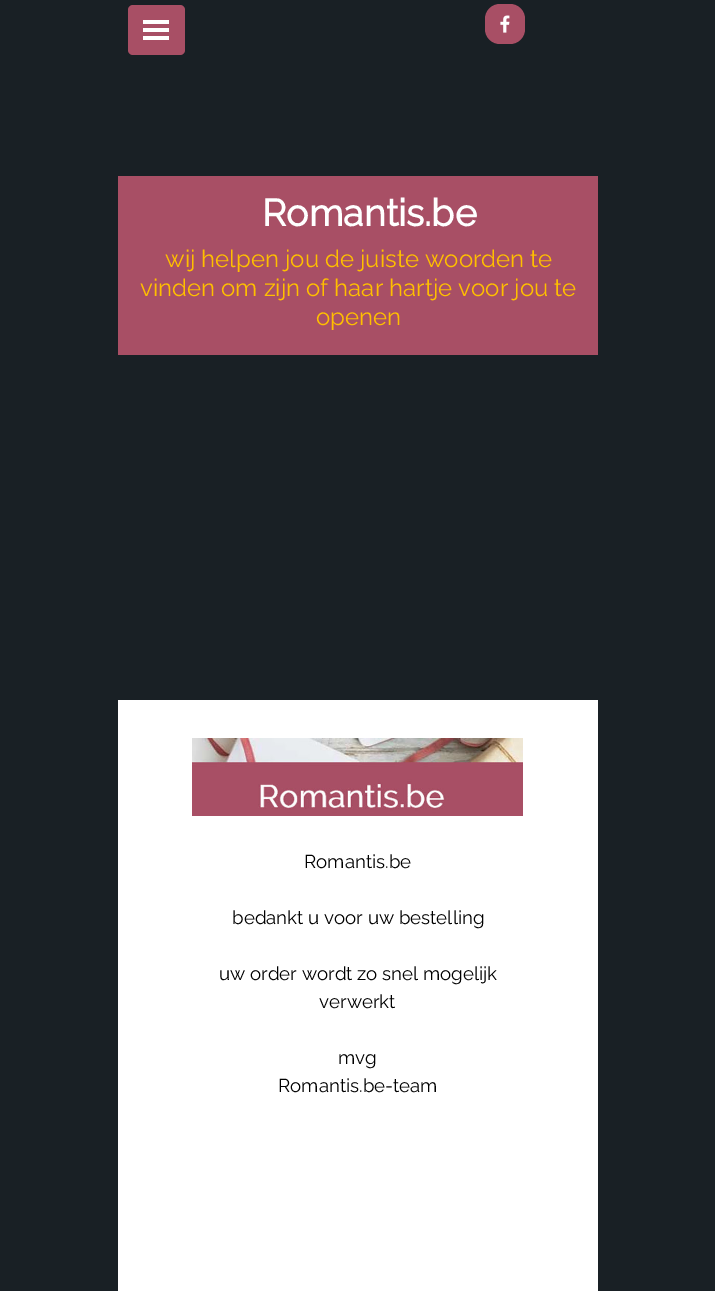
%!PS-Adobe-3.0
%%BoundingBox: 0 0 715 1291
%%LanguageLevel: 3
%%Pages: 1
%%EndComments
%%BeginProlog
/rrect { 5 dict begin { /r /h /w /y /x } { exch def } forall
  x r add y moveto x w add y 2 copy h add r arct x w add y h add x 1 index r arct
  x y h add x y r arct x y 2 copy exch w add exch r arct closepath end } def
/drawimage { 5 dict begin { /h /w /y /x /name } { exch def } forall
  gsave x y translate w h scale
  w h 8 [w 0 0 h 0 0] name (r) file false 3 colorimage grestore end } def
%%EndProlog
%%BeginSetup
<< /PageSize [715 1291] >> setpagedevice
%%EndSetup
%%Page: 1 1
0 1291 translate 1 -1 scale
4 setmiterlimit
0.098 0.125 0.145 setrgbcolor
0 0 715 1291 rectfill
0.659 0.31 0.396 setrgbcolor
128 5 57 50 5 rrect fill
1 setgray
143 20 26 4 rectfill
143 28 26 4 rectfill
143 36 26 4 rectfill
0.659 0.31 0.396 setrgbcolor
485 4 40 40 15 rrect fill
(images/1.raw) 500 15 10 18 drawimage
118 176 480 179 rectfill
1 setgray
118 700 480 591 rectfill
(images/2.raw) 192 738 331 78 drawimage
/Raleway-Bold [37.5 0 0 -37.5 0 0] selectfont
262 226 moveto (Romantis.be) show
/Raleway-Thin [24 0 0 -24 0 0] selectfont
1 0.749 0 setrgbcolor
165 267 moveto (wij helpen jou de juiste woorden te) show
140 296 moveto (vinden om zijn of haar hartje voor jou te) show
316 325 moveto (openen) show
/Raleway-Thin [18.7 0 0 -18.7 0 0] selectfont
0 setgray
304 868 moveto (Romantis.be) show
232 924 moveto (bedankt u voor uw bestelling) show
219 980 moveto (uw order wordt zo snel mogelijk) show
319 1008 moveto (verwerkt) show
338 1064 moveto (mvg) show
278 1092 moveto (Romantis.be-team) show
showpage
%%EOF
